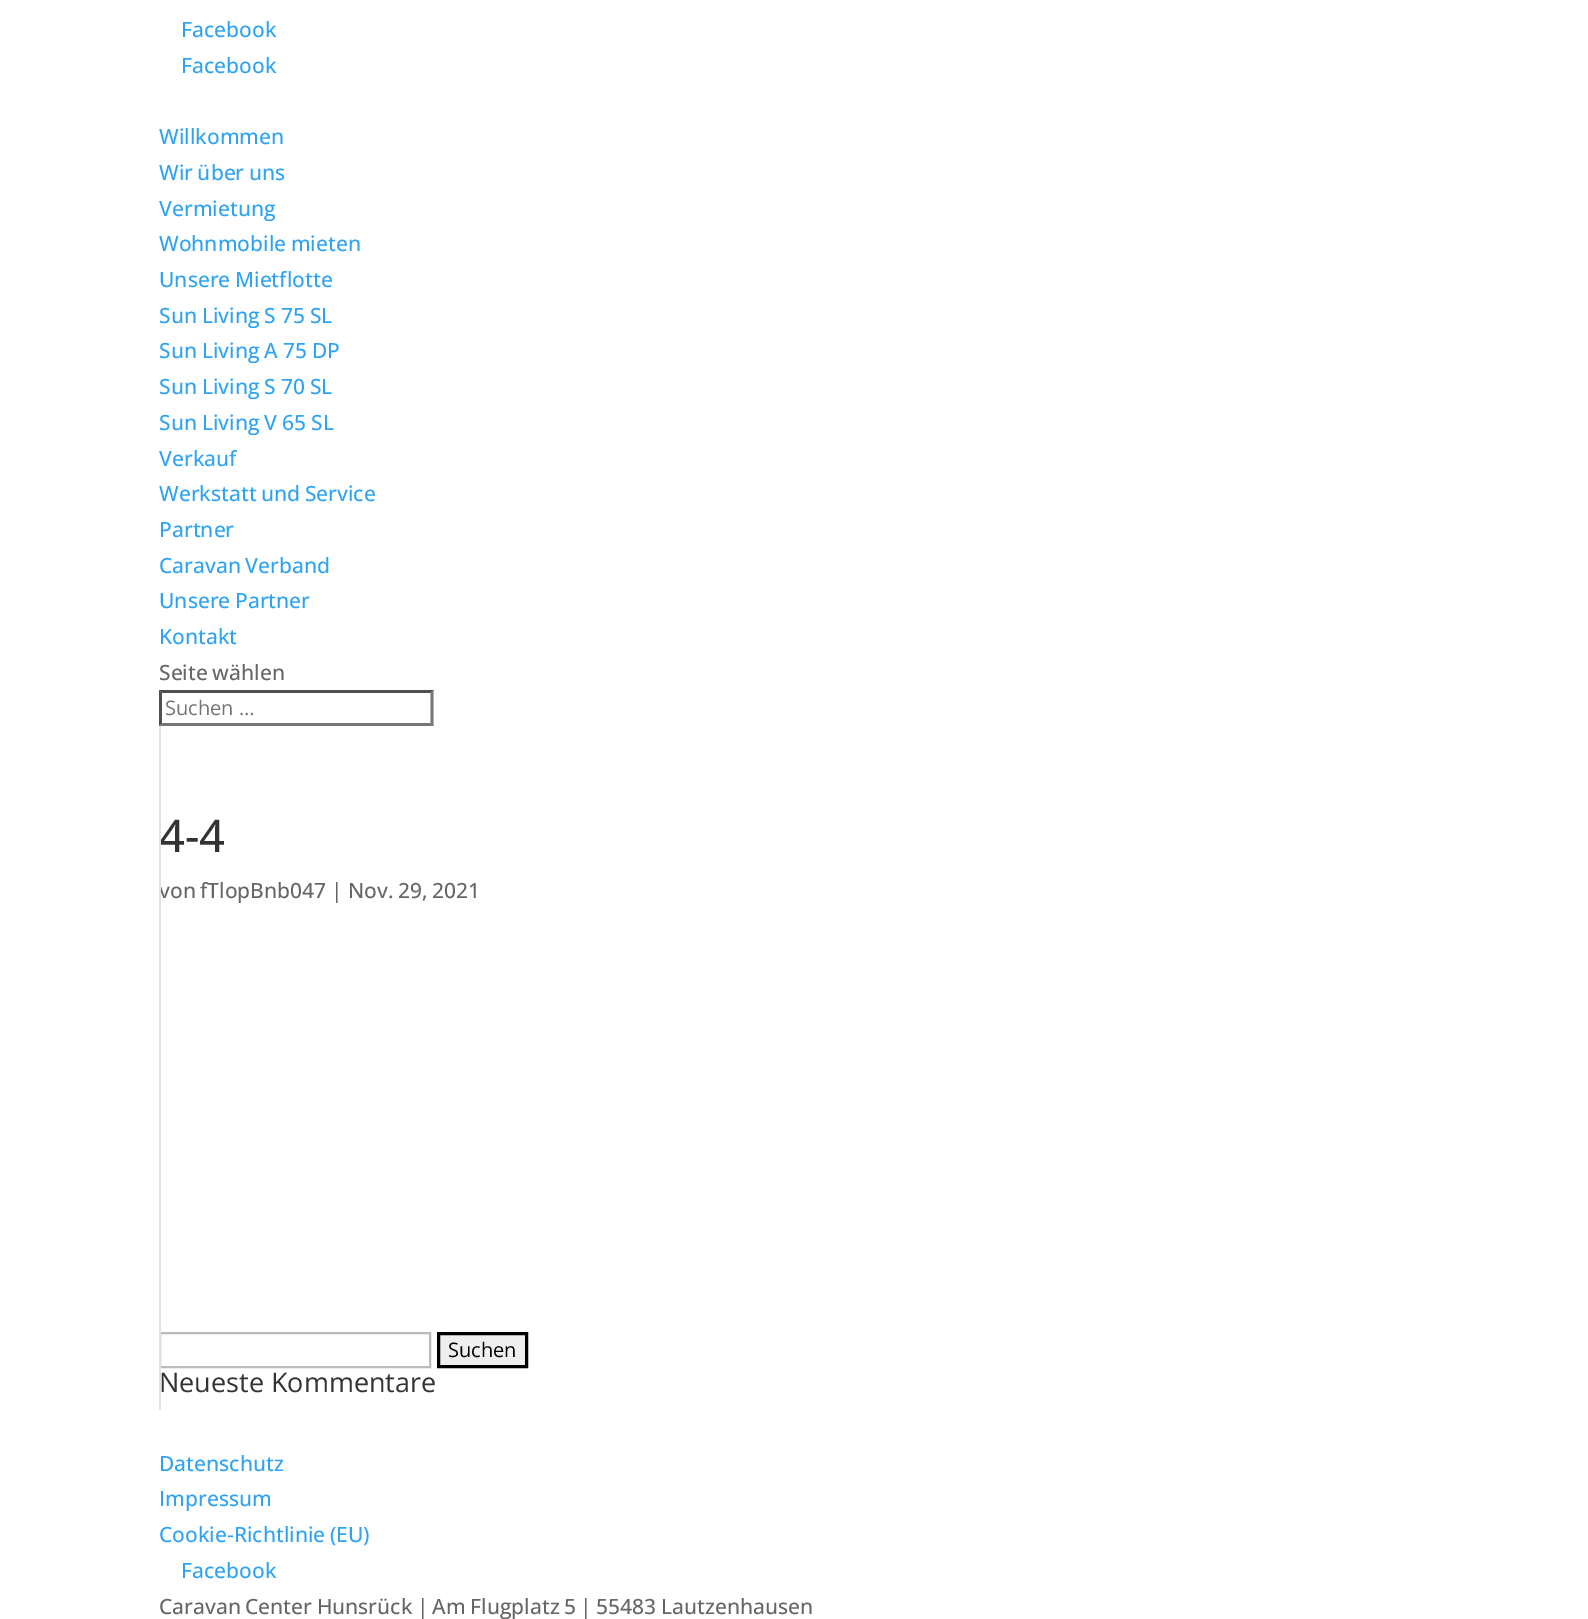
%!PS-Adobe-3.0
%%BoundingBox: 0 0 1588 1619
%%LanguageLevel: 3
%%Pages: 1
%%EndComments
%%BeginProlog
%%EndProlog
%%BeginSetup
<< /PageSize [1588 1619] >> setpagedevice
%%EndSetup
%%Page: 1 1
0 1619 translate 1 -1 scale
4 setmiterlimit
1 setgray
0 0 1588 1619 rectfill
0.31 setgray
newpath 159 690 moveto 434 690 lineto 430 693 lineto 162 693 lineto closepath fill
0.463 setgray
newpath 433.5 690 moveto 433.5 726 lineto 430.5 723 lineto 430.5 693 lineto closepath fill
newpath 434 726 moveto 159 726 lineto 162 723 lineto 430 723 lineto closepath fill
0.31 setgray
newpath 159 726 moveto 159 690 lineto 162 693 lineto 162 723 lineto closepath fill
0.733 setgray
2 setlinewidth
160 1333 270 34 rectstroke
0.937 setgray
newpath 438.5 1333.5 moveto 526.5 1333.5 lineto 526.5 1366.5 lineto 438.5 1366.5 lineto closepath gsave fill grestore
0 setgray
3 setlinewidth
stroke
/OpenSans-Medium [21 0 0 -21 0 0] selectfont
0.18 0.639 0.949 setrgbcolor
181 37 moveto (Facebook) show
181 73 moveto (Facebook) show
159 144 moveto (Willkommen) show
159 180 moveto -1 0 32 (Wir über uns) widthshow
159 216 moveto (Vermietung) show
159 251 moveto -1 0 32 (Wohnmobile mieten) widthshow
159 287 moveto -1 0 32 (Unsere Mietflotte) widthshow
159 323 moveto -0.5 0 32 (Sun Living S 75 SL) widthshow
159 358 moveto -0.5 0 32 (Sun Living A 75 DP) widthshow
159 394 moveto -0.5 0 32 (Sun Living S 70 SL) widthshow
159 430 moveto -0.5 0 32 (Sun Living V 65 SL) widthshow
159 466 moveto (Verkauf) show
159 501 moveto -1 0 32 (Werkstatt und Service) widthshow
159 537 moveto (Partner) show
159 573 moveto -1 0 32 (Caravan Verband) widthshow
159 608 moveto -1 0 32 (Unsere Partner) widthshow
159 644 moveto (Kontakt) show
0.4 setgray
159 680 moveto -1 0 32 (Seite wählen) widthshow
/OpenSans-Regular [20 0 0 -20 0 0] selectfont
0.459 setgray
165 715 moveto (Suchen …) show
/OpenSans-Medium [45 0 0 -45 0 0] selectfont
0.2 setgray
159 852 moveto (4-4) show
/OpenSans-Medium [21 0 0 -21 0 0] selectfont
0.4 setgray
159 898 moveto (von) show
0.886 setgray
159 726 2 684 rectfill
0.4 setgray
200 898 moveto (fTlopBnb047) show
331 898 moveto (|) show
348 898 moveto -1 0 32 (Nov. 29, 2021) widthshow
/OpenSans-Regular [20 0 0 -20 0 0] selectfont
0 setgray
448 1357 moveto (Suchen) show
/OpenSans-Regular [27 0 0 -27 0 0] selectfont
0.2 setgray
159 1392 moveto (Neueste Kommentare) show
/OpenSans-Medium [21 0 0 -21 0 0] selectfont
0.18 0.639 0.949 setrgbcolor
159 1471 moveto (Datenschutz) show
159 1506 moveto (Impressum) show
159 1542 moveto -1 0 32 (Cookie-Richtlinie \(EU\)) widthshow
181 1578 moveto (Facebook) show
0.4 setgray
159 1614 moveto -1.1 0 32 (Caravan Center Hunsrück | Am Flugplatz 5 | 55483 Lautzenhausen) widthshow
showpage
%%EOF
